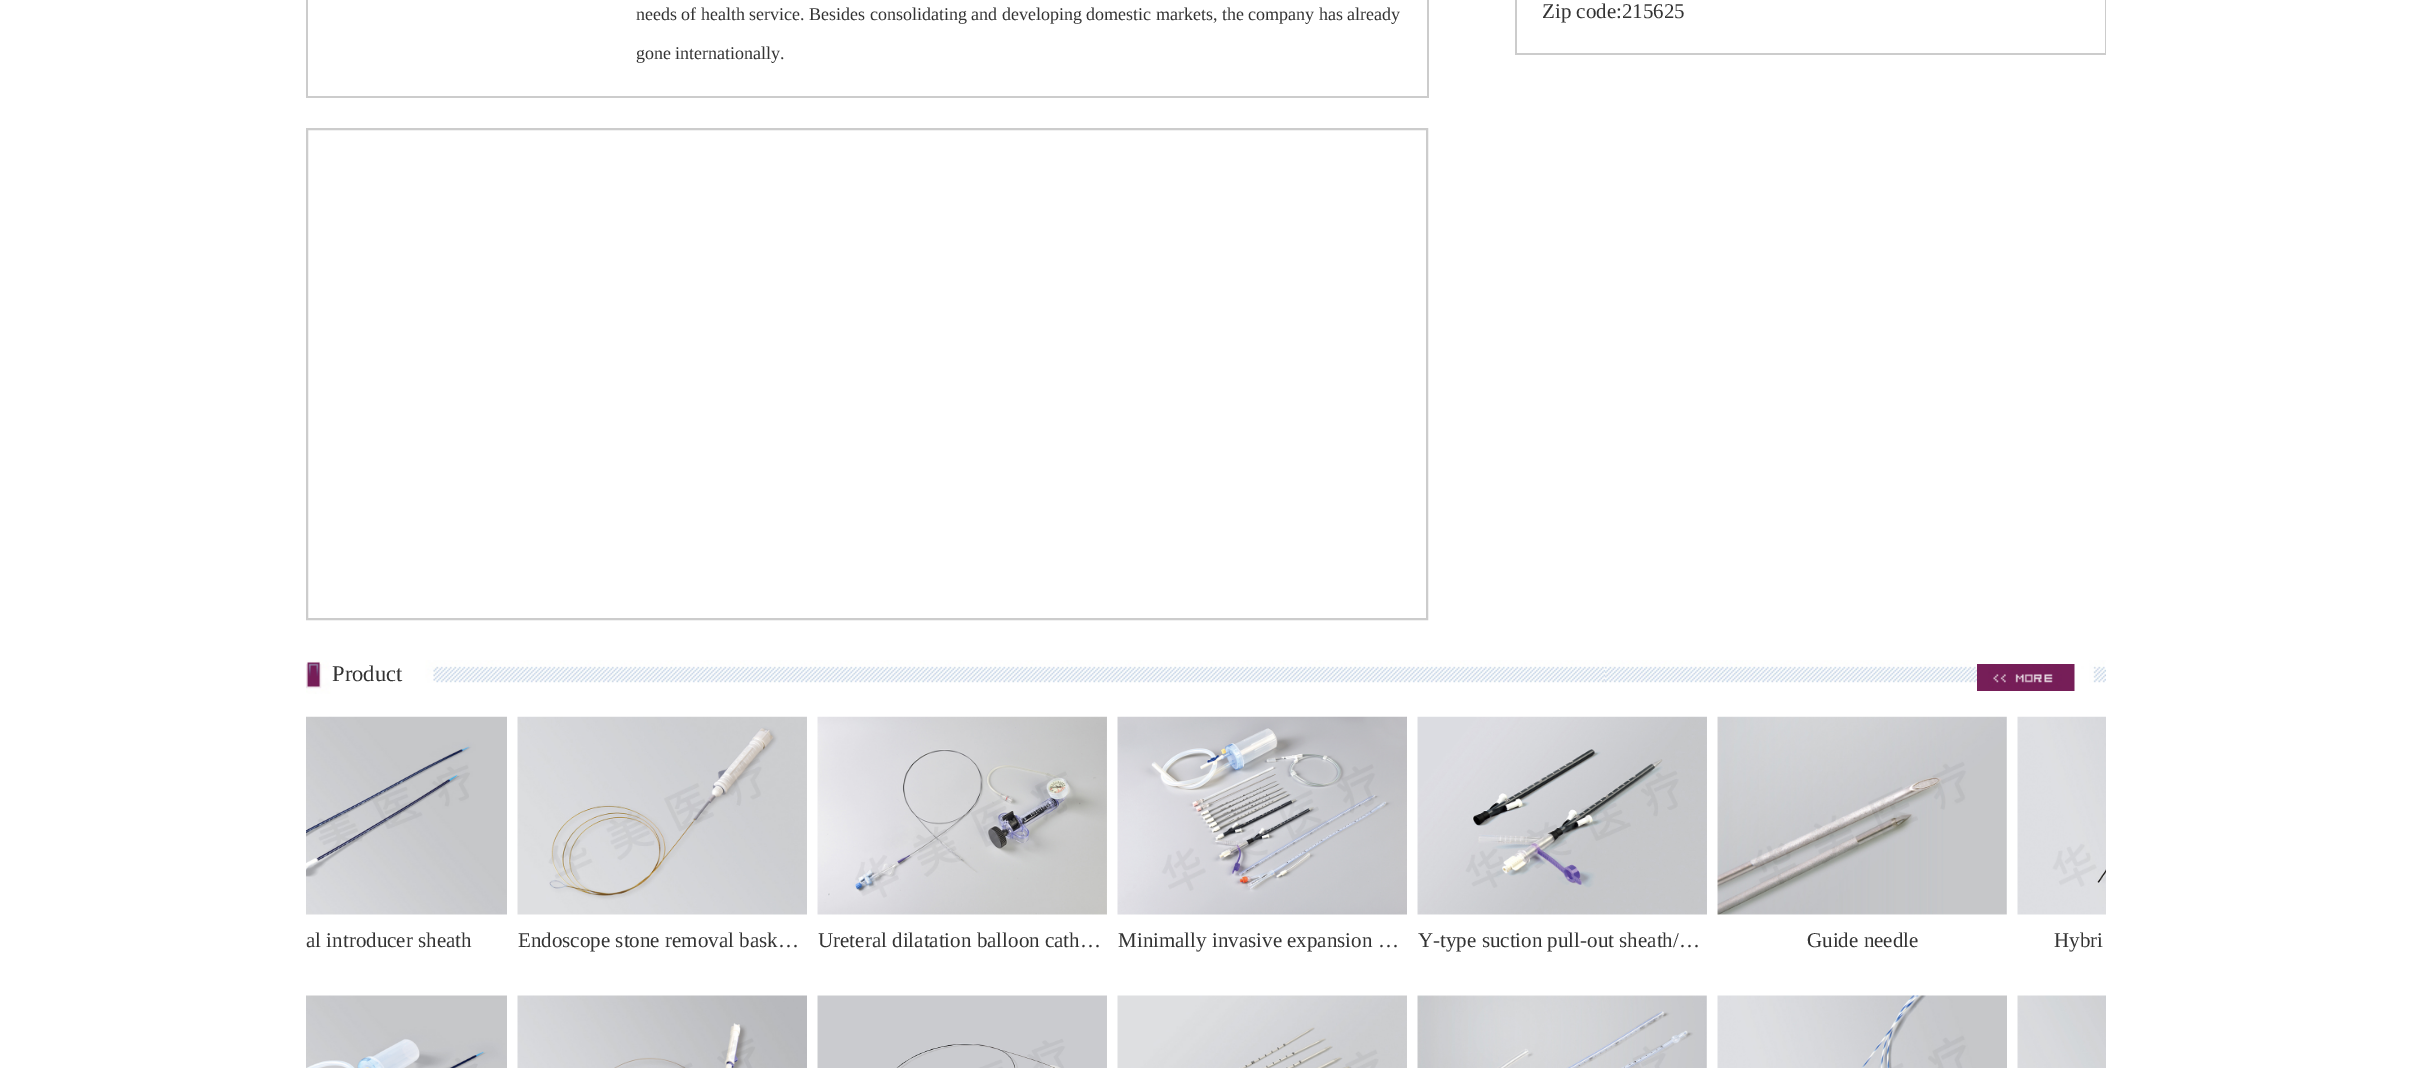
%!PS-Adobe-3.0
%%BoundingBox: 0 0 2411 1068
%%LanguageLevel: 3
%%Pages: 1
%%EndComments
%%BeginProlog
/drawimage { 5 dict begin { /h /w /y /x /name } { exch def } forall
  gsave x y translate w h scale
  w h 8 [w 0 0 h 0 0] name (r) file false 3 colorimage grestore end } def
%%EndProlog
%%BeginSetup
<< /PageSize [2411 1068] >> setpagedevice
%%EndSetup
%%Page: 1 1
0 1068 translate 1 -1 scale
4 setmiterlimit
1 setgray
0 0 2411 1068 rectfill
0.8 setgray
1427 0 2 98 rectfill
306 96 1122 2 rectfill
306 0 2 98 rectfill
2 setlinewidth
307 129 1120 490 rectstroke
2105 0 1 54 rectfill
1515 53 591 2 rectfill
1515 0 2 54 rectfill
(images/1.raw) 306 660 1800 34 drawimage
(images/2.raw) 1977 664 98 27 drawimage
(images/3.raw) 306 716 201 199 drawimage
(images/4.raw) 306 995 201 73 drawimage
(images/5.raw) 517 716 290 199 drawimage
(images/6.raw) 517 995 290 73 drawimage
(images/7.raw) 817 716 290 199 drawimage
(images/8.raw) 817 995 290 73 drawimage
(images/9.raw) 1117 716 290 199 drawimage
(images/10.raw) 1117 995 290 73 drawimage
(images/11.raw) 1417 716 290 199 drawimage
(images/12.raw) 1417 995 290 73 drawimage
(images/13.raw) 1717 716 290 199 drawimage
(images/14.raw) 1717 995 290 73 drawimage
(images/15.raw) 2017 716 89 199 drawimage
(images/16.raw) 2017 995 89 73 drawimage
/LiberationSerif-Regular [18 0 0 -18 0 0] selectfont
0.2 setgray
636 20 moveto (needs of health service. Besides consolidating and developing domestic markets, the company has already) show
636 59 moveto (gone internationally.) show
/LiberationSerif-Regular [21 0 0 -21 0 0] selectfont
1542 18 moveto (Zip code:215625) show
/LiberationSerif-Regular [22.5 0 0 -22.5 0 0] selectfont
332 681 moveto (Product) show
/LiberationSerif-Regular [21 0 0 -21 0 0] selectfont
306 947 moveto (al introducer sheath) show
518 947 moveto (Endoscope stone removal bask…) show
818 947 moveto (Ureteral dilatation balloon cath…) show
1118 947 moveto (Minimally invasive expansion …) show
1418 947 moveto (Y-type suction pull-out sheath/…) show
1807 947 moveto (Guide needle) show
2054 947 moveto (Hybri) show
showpage
%%EOF
